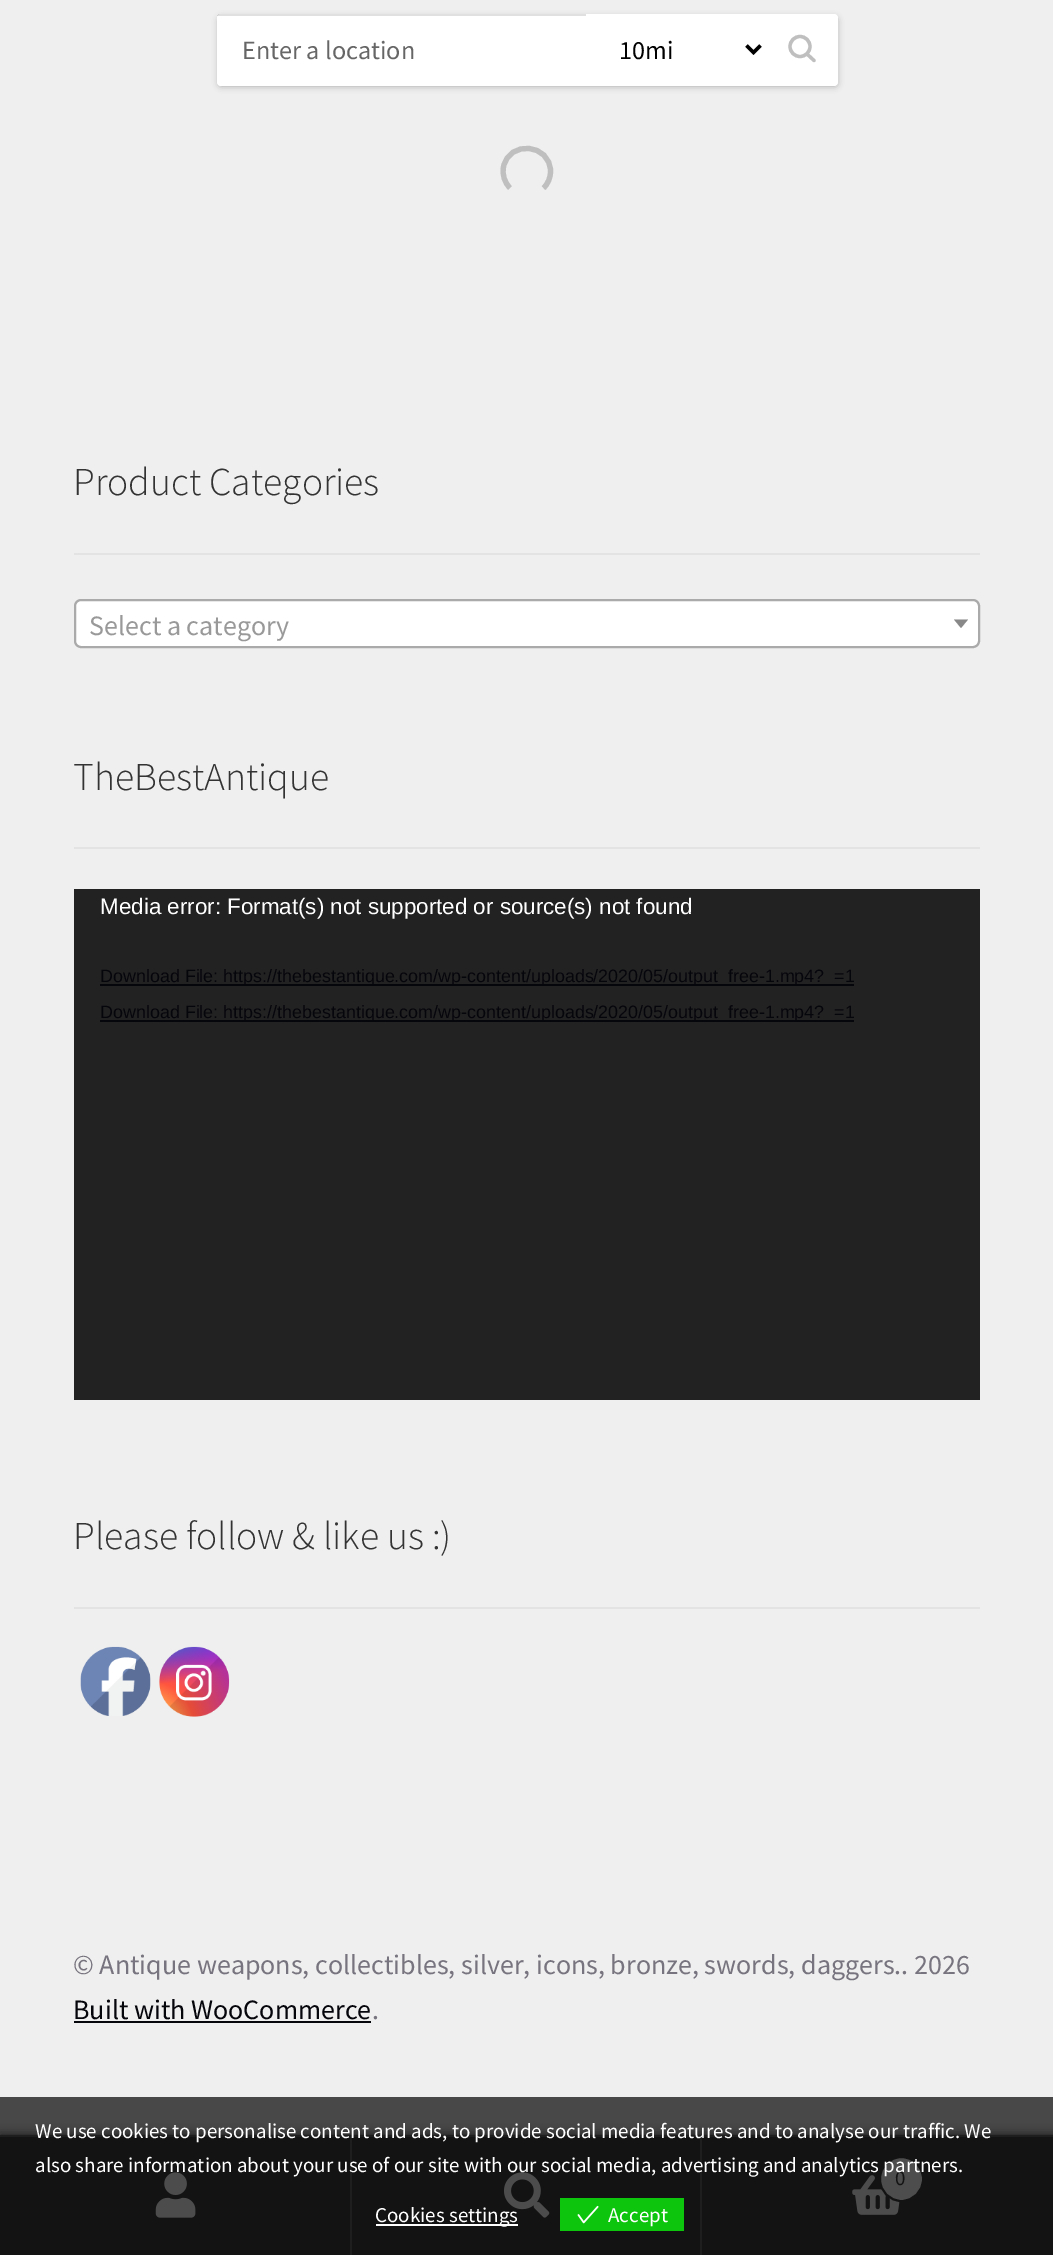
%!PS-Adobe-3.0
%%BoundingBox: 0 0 1053 2255
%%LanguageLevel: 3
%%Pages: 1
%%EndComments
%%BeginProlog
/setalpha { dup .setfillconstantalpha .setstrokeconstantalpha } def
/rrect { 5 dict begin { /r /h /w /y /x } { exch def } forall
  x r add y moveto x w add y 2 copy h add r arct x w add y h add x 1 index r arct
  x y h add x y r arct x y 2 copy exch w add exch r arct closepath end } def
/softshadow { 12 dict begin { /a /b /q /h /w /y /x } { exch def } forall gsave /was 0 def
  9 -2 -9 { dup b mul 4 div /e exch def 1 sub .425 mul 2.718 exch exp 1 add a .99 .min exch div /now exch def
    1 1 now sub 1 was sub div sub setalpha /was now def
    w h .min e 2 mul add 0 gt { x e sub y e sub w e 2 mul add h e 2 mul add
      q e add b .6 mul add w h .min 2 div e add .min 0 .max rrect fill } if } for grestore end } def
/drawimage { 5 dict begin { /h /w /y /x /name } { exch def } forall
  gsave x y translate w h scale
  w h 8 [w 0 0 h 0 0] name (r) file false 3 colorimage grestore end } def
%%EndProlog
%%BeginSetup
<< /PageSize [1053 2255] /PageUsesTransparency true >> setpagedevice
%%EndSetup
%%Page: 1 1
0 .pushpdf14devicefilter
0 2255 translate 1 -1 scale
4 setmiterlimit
0.937 setgray
0 0 1053 2255 rectfill
0.282 setgray
0 2097 1053 38 rectfill
0 setgray
219 18 618 68 2 3.5 0.3 softshadow
1 setgray
217 14 621 72 4 rrect fill
gsave
217 14 621 72 4 rrect clip newpath
0.12 setalpha
0 setgray
217 14 369 2 rectfill
grestore
0 setgray
3.5 setlinewidth
newpath 746.5 45.5 moveto 753.5 52.5 lineto 760.5 45.5 lineto stroke
0.749 setgray
3.3 setlinewidth
1 setlinecap
newpath 807.5 54.5 moveto 814 60.5 lineto stroke
0 setlinecap
newpath 800 46.5 10 0 360 arc closepath stroke
5.2 setlinewidth
newpath 510 188 moveto 504.5 182.5 502 174.5 503.5 167 curveto 509 139.5 550.5 143.5 550.5 171.5 curveto 550.5 177.5 548 184 543.5 188 curveto stroke
0.89 setgray
74 553 906 2 rectfill
1 setgray
75 600 904 47 6 rrect gsave fill grestore
0.667 setgray
2 setlinewidth
stroke
0.533 setgray
newpath 954 619.5 moveto 968 619.5 lineto 961 628 lineto closepath fill
0.89 setgray
74 847 906 2 rectfill
0.133 setgray
74 889 906 511 rectfill
0.02 0.02 0.047 setrgbcolor
100 984 754 2 rectfill
100 1020 754 2 rectfill
0.89 setgray
74 1607 906 2 rectfill
(images/1.raw) 80 1646 71 70 drawimage
(images/2.raw) 159 1646 71 71 drawimage
0.02 0.02 0.047 setrgbcolor
74 2021 297 2 rectfill
0 setgray
0 2135 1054 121 0 5 0.7 softshadow
0.118 setgray
0 2135 1053 2 rectfill
0.075 setgray
0 2137 350 118 rectfill
0.118 setgray
350 2137 2 118 rectfill
(images/3.raw) 155 2172 41 46 drawimage
0.075 setgray
352 2137 348 118 rectfill
0.118 setgray
700 2137 2 118 rectfill
(images/4.raw) 504 2172 46 46 drawimage
0.075 setgray
702 2137 351 118 rectfill
(images/5.raw) 852 2175 48 40 drawimage
0.302 setgray
880 2157 43 44 21.5 rrect gsave fill grestore
0.075 setgray
stroke
1 setgray
376 2224 142 2 rectfill
0.055 0.773 0.055 setrgbcolor
560 2198 124 33 rectfill
(images/6.raw) 577 2205 22 19 drawimage
/SourceSansPro-Regular [26.25 0 0 -26.25 0 0] selectfont
0.4 setgray
242 59 moveto (Enter a location) show
0 setgray
619 59 moveto (10mi) show
/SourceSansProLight-Light [39.6 0 0 -39.6 0 0] selectfont
0.2 setgray
73 495 moveto (Product Categories) show
/SourceSansPro-Regular [28 0 0 -28 0 0] selectfont
0.6 setgray
89 635 moveto (Select a category) show
/SourceSansProLight-Light [39.6 0 0 -39.6 0 0] selectfont
0.2 setgray
73 790 moveto (TheBestAntique) show
/LiberationSans-Regular [22.4 0 0 -22.4 0 0] selectfont
1 setgray
100 914 moveto (Media error: Format\(s\) not supported or source\(s\) not found) show
/LiberationSans-Regular [17.9 0 0 -17.9 0 0] selectfont
0.02 0.02 0.047 setrgbcolor
100 982 moveto (Download File: https://thebestantique.com/wp-content/uploads/2020/05/output_free-1.mp4?_=1) show
100 1018 moveto (Download File: https://thebestantique.com/wp-content/uploads/2020/05/output_free-1.mp4?_=1) show
/SourceSansProLight-Light [39.6 0 0 -39.6 0 0] selectfont
0.2 setgray
73 1549 moveto (Please follow & like us :\)) show
/SourceSansPro-Regular [28 0 0 -28 0 0] selectfont
0.471 0.455 0.498 setrgbcolor
73 1974 moveto (© Antique weapons, collectibles, silver, icons, bronze, swords, daggers.. 2026) show
0.02 0.02 0.047 setrgbcolor
73 2019 moveto (Built with WooCommerce) show
0.471 0.455 0.498 setrgbcolor
372 2019 moveto (.) show
/SourceSansPro-Regular [21 0 0 -21 0 0] selectfont
0.075 setgray
895 2185 moveto (0) show
1 setgray
35 2138 moveto (We use cookies to personalise content and ads, to provide social media features and to analyse our traffic. We) show
35 2172 moveto (also share information about your use of our site with our social media, advertising and analytics partners.) show
375 2222 moveto (Cookies settings) show
608 2222 moveto (Accept) show
.poppdf14devicefilter showpage
%%EOF
